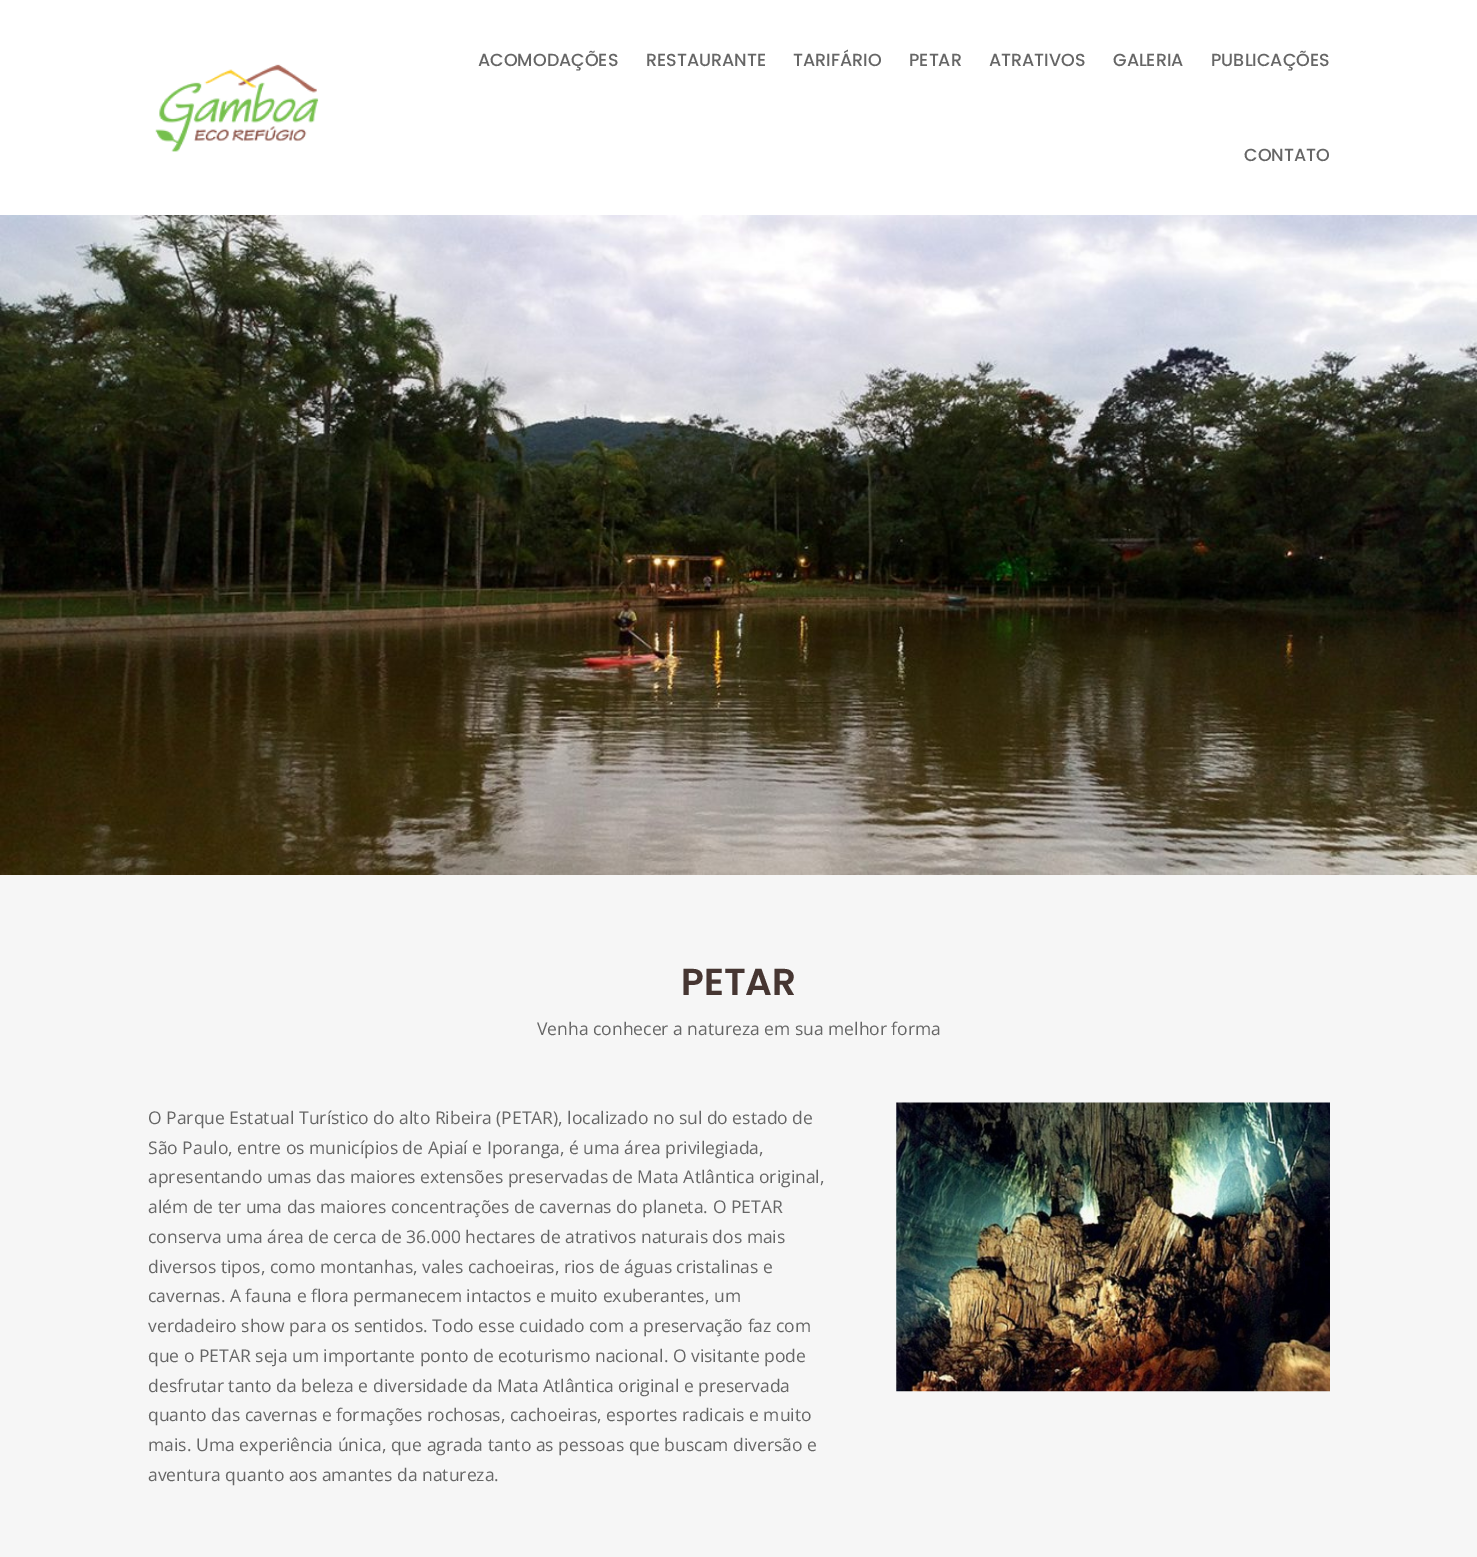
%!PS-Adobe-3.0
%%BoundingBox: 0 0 1477 1557
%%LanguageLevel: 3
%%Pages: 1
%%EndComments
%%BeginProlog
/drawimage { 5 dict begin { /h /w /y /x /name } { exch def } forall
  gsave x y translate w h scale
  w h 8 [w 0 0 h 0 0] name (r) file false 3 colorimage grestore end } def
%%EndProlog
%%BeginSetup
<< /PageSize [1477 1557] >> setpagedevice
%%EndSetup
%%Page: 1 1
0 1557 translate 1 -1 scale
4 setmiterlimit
1 setgray
0 0 1477 1557 rectfill
(images/1.raw) 155 64 164 88 drawimage
(images/2.raw) 0 215 1477 660 drawimage
0.965 setgray
0 875 1477 682 rectfill
(images/3.raw) 896 1102 434 290 drawimage
/Poppins-Medium [17.5 0 0 -17.5 0 0] selectfont
0.4 setgray
478 66 moveto (ACOMODAÇÕES) show
646 66 moveto (RESTAURANTE) show
793 66 moveto (TARIFÁRIO) show
909 66 moveto (PETAR) show
989 66 moveto (ATRATIVOS) show
1113 66 moveto (GALERIA) show
1211 66 moveto (PUBLICAÇÕES) show
1244 161 moveto (CONTATO) show
/Poppins-SemiBold [37.5 0 0 -37.5 0 0] selectfont
0.275 0.212 0.196 setrgbcolor
681 995 moveto (PETAR) show
/OpenSans-Regular [17.5 0 0 -17.5 0 0] selectfont
0.4 setgray
537 1035 moveto (Venha conhecer a natureza em sua melhor forma) show
148 1124 moveto (O Parque Estatual Turístico do alto Ribeira \(PETAR\), localizado no sul do estado de) show
148 1154 moveto (São Paulo, entre os municípios de Apiaí e Iporanga, é uma área privilegiada,) show
148 1183 moveto (apresentando umas das maiores extensões preservadas de Mata Atlântica original,) show
148 1213 moveto (além de ter uma das maiores concentrações de cavernas do planeta. O PETAR) show
148 1243 moveto (conserva uma área de cerca de 36.000 hectares de atrativos naturais dos mais) show
148 1273 moveto (diversos tipos, como montanhas, vales cachoeiras, rios de águas cristalinas e) show
148 1302 moveto (cavernas. A fauna e flora permanecem intactos e muito exuberantes, um) show
148 1332 moveto (verdadeiro show para os sentidos. Todo esse cuidado com a preservação faz com) show
148 1362 moveto (que o PETAR seja um importante ponto de ecoturismo nacional. O visitante pode) show
148 1392 moveto (desfrutar tanto da beleza e diversidade da Mata Atlântica original e preservada) show
148 1421 moveto (quanto das cavernas e formações rochosas, cachoeiras, esportes radicais e muito) show
148 1451 moveto (mais. Uma experiência única, que agrada tanto as pessoas que buscam diversão e) show
148 1481 moveto (aventura quanto aos amantes da natureza.) show
showpage
%%EOF
